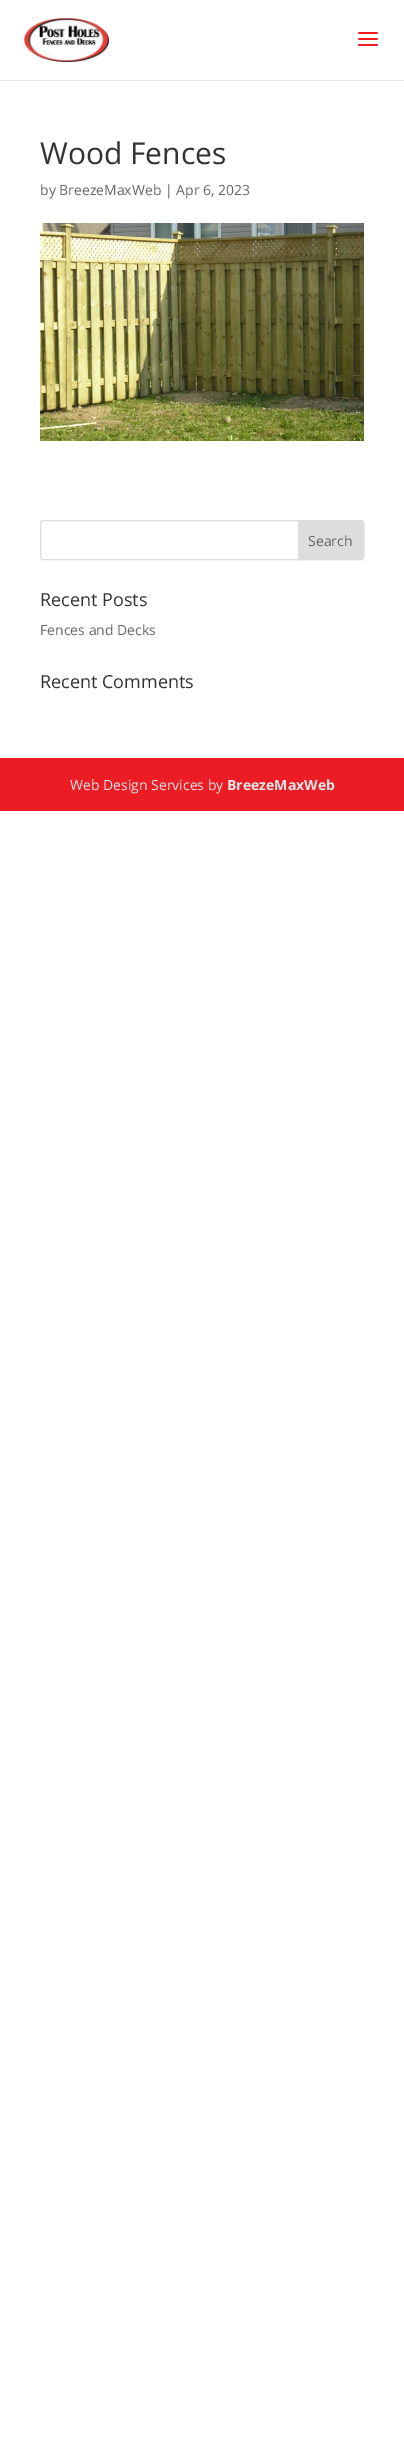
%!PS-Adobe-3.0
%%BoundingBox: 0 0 404 2450
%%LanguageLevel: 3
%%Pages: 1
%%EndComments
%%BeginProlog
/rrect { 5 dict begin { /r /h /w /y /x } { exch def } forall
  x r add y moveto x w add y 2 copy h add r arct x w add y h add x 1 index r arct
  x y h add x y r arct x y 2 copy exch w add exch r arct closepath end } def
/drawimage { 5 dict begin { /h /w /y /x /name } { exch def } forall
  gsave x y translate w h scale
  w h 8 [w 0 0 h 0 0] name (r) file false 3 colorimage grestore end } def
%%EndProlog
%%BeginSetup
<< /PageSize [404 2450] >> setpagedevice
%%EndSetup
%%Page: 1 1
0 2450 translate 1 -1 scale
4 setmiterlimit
1 setgray
0 0 404 2450 rectfill
0.902 setgray
0 80 404 1 rectfill
(images/1.raw) 24 18 85 44 drawimage
(images/2.raw) 358 32 20 14 drawimage
(images/3.raw) 40 223 324 218 drawimage
0.867 setgray
40.5 520.5 323 39 2.5 rrect stroke
newpath 298.5 520.5 moveto 361 520.5 lineto 362.5 520.5 363.5 521.5 363.5 523 curveto 363.5 557 lineto 363.5 558.5 362.5 559.5 361 559.5 curveto 298.5 559.5 lineto closepath gsave fill grestore
stroke
0.922 0.11 0.141 setrgbcolor
0 758 404 53 rectfill
/OpenSans-Regular [30 0 0 -30 0 0] selectfont
0.2 setgray
40 164 moveto (Wood Fences) show
/OpenSans-Regular [14 0 0 -14 0 0] selectfont
0.4 setgray
40 195 moveto (by BreezeMaxWeb | Apr 6, 2023) show
308 546 moveto (Search) show
/OpenSans-Regular [18 0 0 -18 0 0] selectfont
0.2 setgray
40 606 moveto (Recent Posts) show
/OpenSans-Regular [14 0 0 -14 0 0] selectfont
0.4 setgray
40 635 moveto (Fences and Decks) show
/OpenSans-Regular [18 0 0 -18 0 0] selectfont
0.2 setgray
40 688 moveto (Recent Comments) show
/OpenSans-Regular [14 0 0 -14 0 0] selectfont
0.906 setgray
70 790 moveto (Web Design Services by) show
/OpenSans-Bold [14 0 0 -14 0 0] selectfont
227 790 moveto (BreezeMaxWeb) show
showpage
%%EOF
